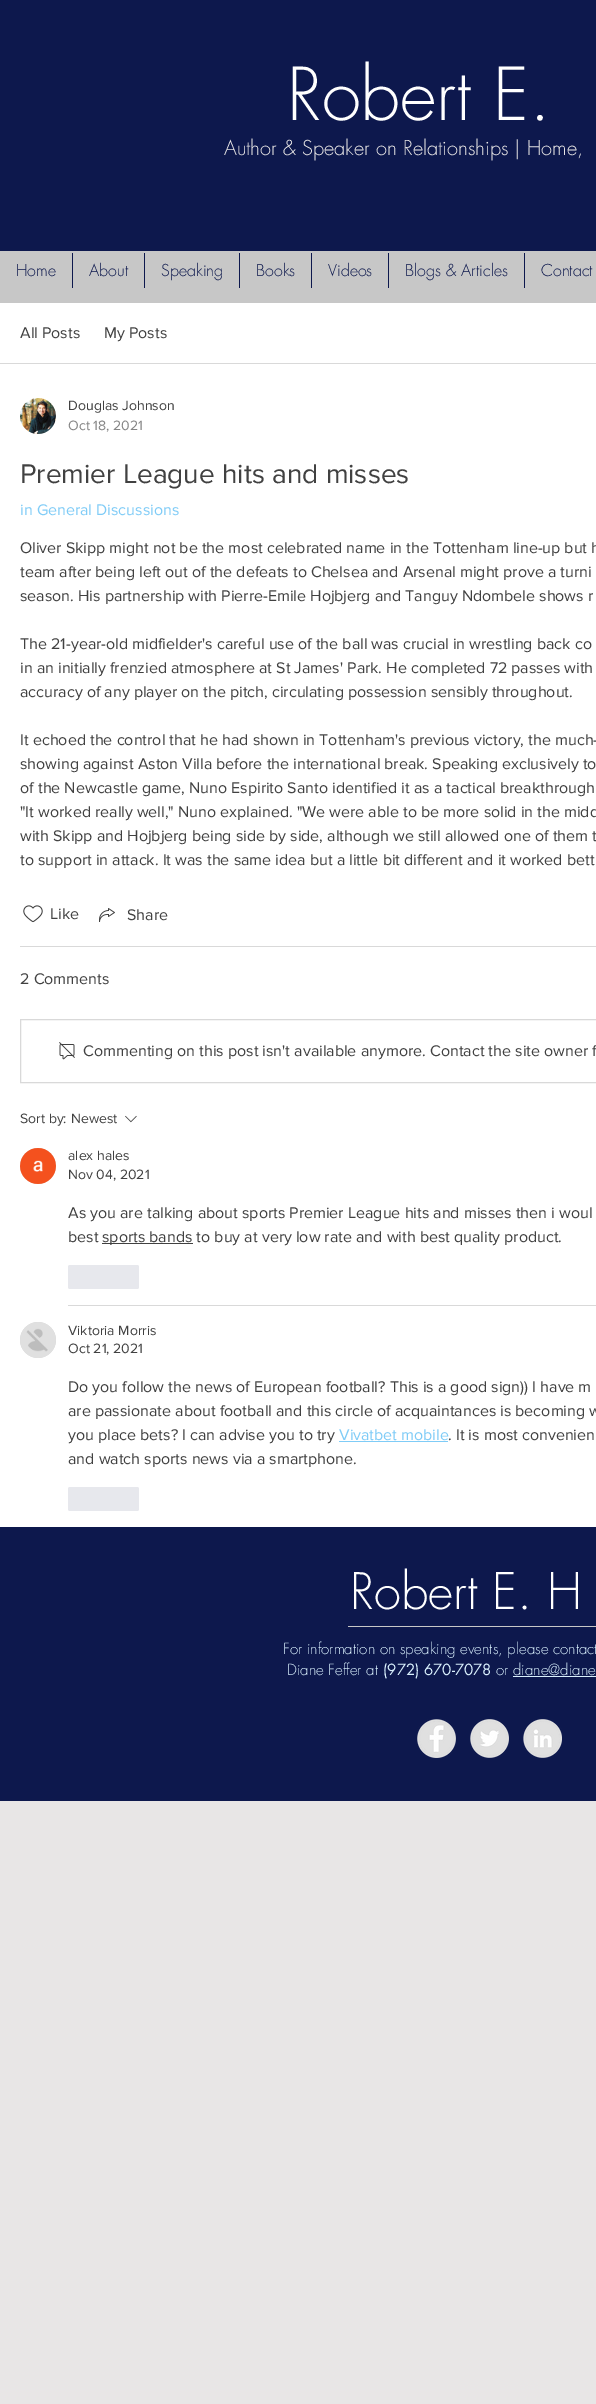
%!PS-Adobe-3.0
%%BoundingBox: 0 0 596 2404
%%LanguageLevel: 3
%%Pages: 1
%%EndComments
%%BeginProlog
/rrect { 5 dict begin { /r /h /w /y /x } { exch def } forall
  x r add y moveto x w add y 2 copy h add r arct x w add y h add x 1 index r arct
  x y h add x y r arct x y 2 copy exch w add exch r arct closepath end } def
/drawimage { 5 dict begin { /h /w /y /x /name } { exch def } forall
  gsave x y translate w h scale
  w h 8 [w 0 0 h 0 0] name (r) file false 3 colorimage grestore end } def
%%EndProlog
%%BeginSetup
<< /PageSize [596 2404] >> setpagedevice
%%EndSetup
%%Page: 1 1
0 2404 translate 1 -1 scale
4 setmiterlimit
0.91 0.902 0.902 setrgbcolor
0 0 596 2404 rectfill
0.051 0.094 0.302 setrgbcolor
0 0 596 251 rectfill
0.78 setgray
0 251 596 52 rectfill
0.051 0.094 0.302 setrgbcolor
72 253 1 35 rectfill
144 253 1 35 rectfill
239 253 1 35 rectfill
311 253 1 35 rectfill
388 253 1 35 rectfill
524 253 1 35 rectfill
1 setgray
0 303 596 1224 rectfill
0.851 setgray
0 363 596 1 rectfill
(images/1.raw) 20 398 36 36 drawimage
(images/2.raw) 23 905 20 18 drawimage
(images/3.raw) 99 908 16 14 drawimage
20 946 576 1 rectfill
20.5 1019.5 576 63 rectstroke
(images/4.raw) 59 1042 16 18 drawimage
(images/5.raw) 125 1115 12 8 drawimage
(images/6.raw) 20 1148 36 36 drawimage
0.255 setgray
102 1243 91 1 rectfill
0.906 0.91 0.929 setrgbcolor
68 1265 71 24 2 rrect fill
0.851 setgray
68 1305 528 1 rectfill
(images/7.raw) 20 1322 36 36 drawimage
0.498 0.8 0.969 setrgbcolor
339 1441 109 1 rectfill
0.906 0.91 0.929 setrgbcolor
68 1487 71 24 2 rrect fill
0.051 0.094 0.302 setrgbcolor
0 1527 596 274 rectfill
0.78 setgray
348 1626 248 1 rectfill
0.851 0.941 0.992 setrgbcolor
513 1676 83 1 rectfill
(images/8.raw) 417 1719 39 39 drawimage
(images/9.raw) 470 1719 39 39 drawimage
(images/10.raw) 523 1719 39 39 drawimage
/futura-Light [71 0 0 -71 0 0] selectfont
1 setgray
287 120 moveto (Robert E.) show
/futura-Light [20 0 0 -20 0 0] selectfont
0.91 0.902 0.902 setrgbcolor
224 155 moveto (Author & Speaker on Relationships | Home,) show
/futura-Light [16 0 0 -16 0 0] selectfont
0.051 0.094 0.302 setrgbcolor
16 276 moveto (Home) show
89 276 moveto (About) show
161 276 moveto (Speaking) show
256 276 moveto (Books) show
328 276 moveto (Videos) show
405 276 moveto (Blogs & Articles) show
541 276 moveto (Contact) show
/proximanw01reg-Regular [16 0 0 -16 0 0] selectfont
0.255 setgray
20 338 moveto (All Posts) show
104 338 moveto (My Posts) show
/proximanw01reg-Regular [14 0 0 -14 0 0] selectfont
68 410 moveto (Douglas Johnson) show
0.522 setgray
68 430 moveto (Oct 18, 2021) show
/proximanw01reg-Regular [28 0 0 -28 0 0] selectfont
0.255 setgray
20 483 moveto (Premier League hits and misses) show
/proximanw01reg-Regular [16 0 0 -16 0 0] selectfont
0.498 0.8 0.969 setrgbcolor
20 515 moveto (in General Discussions) show
0.255 setgray
20 553 moveto (Oliver Skipp might not be the most celebrated name in the Tottenham line-up but h) show
20 577 moveto (team after being left out of the defeats to Chelsea and Arsenal might prove a turni) show
20 601 moveto (season. His partnership with Pierre-Emile Hojbjerg and Tanguy Ndombele shows r) show
20 649 moveto (The 21-year-old midfielder's careful use of the ball was crucial in wrestling back co) show
20 673 moveto (in an initially frenzied atmosphere at St James' Park. He completed 72 passes with) show
20 697 moveto (accuracy of any player on the pitch, circulating possession sensibly throughout.) show
20 745 moveto (It echoed the control that he had shown in Tottenham's previous victory, the much-) show
20 769 moveto (showing against Aston Villa before the international break. Speaking exclusively to) show
20 793 moveto (of the Newcastle game, Nuno Espirito Santo identified it as a tactical breakthrough) show
20 817 moveto ("It worked really well," Nuno explained. "We were able to be more solid in the midd) show
20 841 moveto (with Skipp and Hojbjerg being side by side, although we still allowed one of them t) show
20 865 moveto (to support in attack. It was the same idea but a little bit different and it worked bett) show
50 919 moveto (Like) show
127 920 moveto (Share) show
20 984 moveto (2 Comments) show
83 1056 moveto (Commenting on this post isn't available anymore. Contact the site owner f) show
/proximanw01reg-Regular [14 0 0 -14 0 0] selectfont
20 1123 moveto (Sort by:) show
71 1123 moveto (Newest) show
68 1160 moveto (alex hales) show
68 1179 moveto (Nov 04, 2021) show
/proximanw01reg-Regular [16 0 0 -16 0 0] selectfont
68 1218 moveto (As you are talking about sports Premier League hits and misses then i woul) show
68 1242 moveto (best) show
102 1242 moveto (sports bands to buy at very low rate and with best quality product.) show
/proximanw01reg-Regular [14 0 0 -14 0 0] selectfont
68 1335 moveto (Viktoria Morris) show
68 1353 moveto (Oct 21, 2021) show
/proximanw01reg-Regular [16 0 0 -16 0 0] selectfont
68 1392 moveto (Do you follow the news of European football? This is a good sign\)\) I have m) show
68 1416 moveto (are passionate about football and this circle of acquaintances is becoming w) show
68 1440 moveto (you place bets? I can advise you to try) show
0.498 0.8 0.969 setrgbcolor
339 1440 moveto (Vivatbet mobile) show
0.255 setgray
448 1440 moveto (. It is most convenien) show
68 1464 moveto (and watch sports news via a smartphone.) show
/futura-Light [49 0 0 -49 0 0] selectfont
1 setgray
350 1609 moveto (Robert E. H) show
/futura-Light [15 0 0 -15 0 0] selectfont
0.851 0.941 0.992 setrgbcolor
283 1654 moveto (For information on speaking events, please contact) show
287 1675 moveto (Diane Feffer at) show
/futura-Regular [15 0 0 -15 0 0] selectfont
383 1675 moveto (\(972\) 670-7078) show
/futura-Light [15 0 0 -15 0 0] selectfont
496 1675 moveto (or diane@diane) show
showpage
%%EOF
